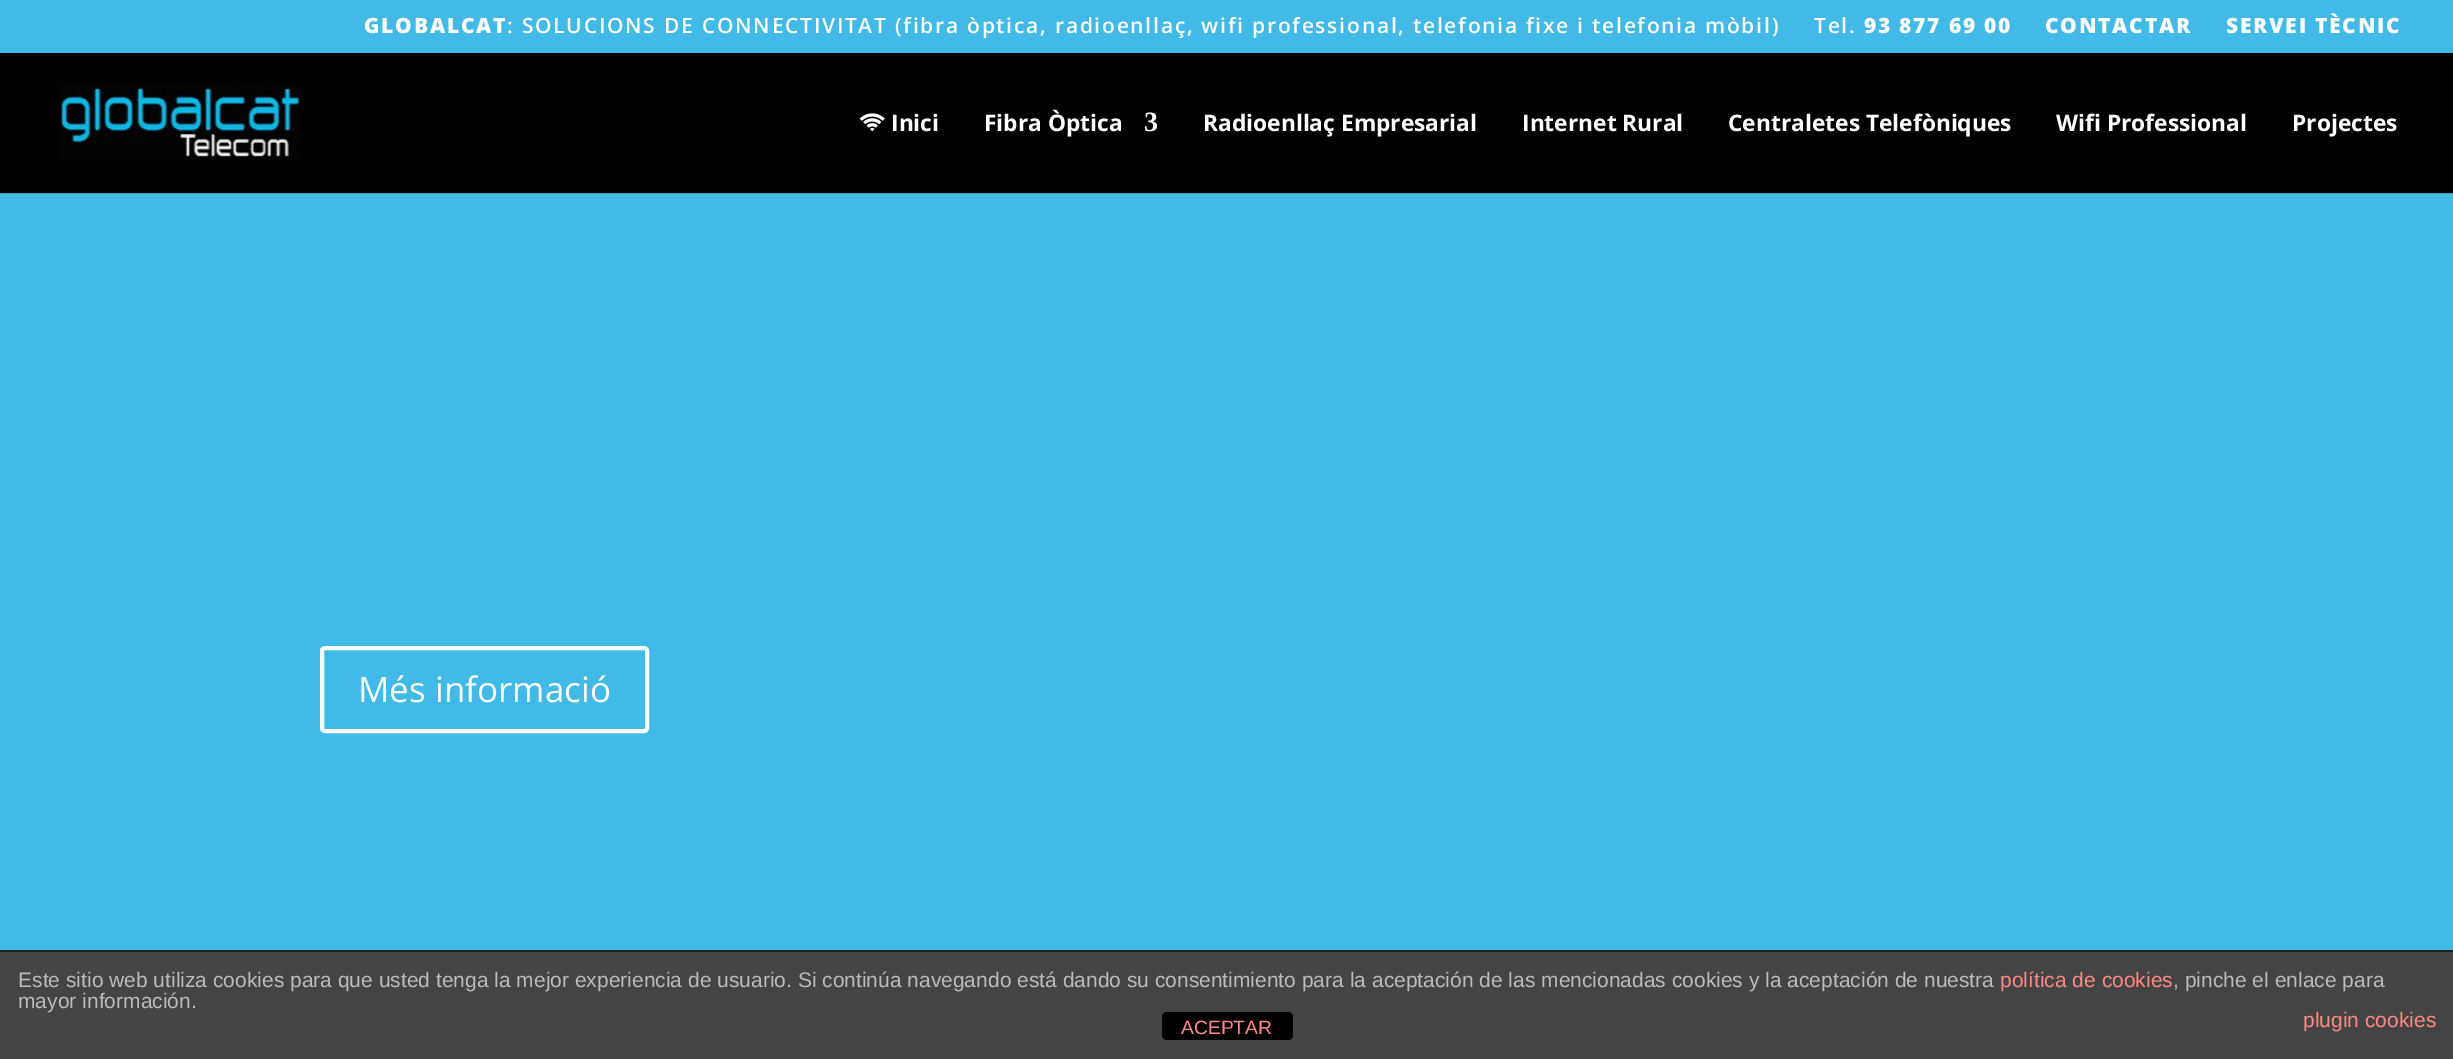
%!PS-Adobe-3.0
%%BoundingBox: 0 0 2453 1059
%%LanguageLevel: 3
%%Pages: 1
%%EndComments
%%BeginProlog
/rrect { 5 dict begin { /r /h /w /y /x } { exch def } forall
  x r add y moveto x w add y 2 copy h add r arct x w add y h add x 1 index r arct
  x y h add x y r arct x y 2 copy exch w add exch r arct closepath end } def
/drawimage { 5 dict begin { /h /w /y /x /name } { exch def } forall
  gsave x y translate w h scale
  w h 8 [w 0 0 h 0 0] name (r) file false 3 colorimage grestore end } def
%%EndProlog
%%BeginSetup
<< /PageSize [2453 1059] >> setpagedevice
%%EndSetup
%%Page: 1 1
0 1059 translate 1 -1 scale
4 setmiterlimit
0.259 0.729 0.906 setrgbcolor
0 0 2453 1059 rectfill
0.231 0.655 0.816 setrgbcolor
newpath 0 192 moveto 0 194 lineto 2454 194 lineto 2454 54 lineto 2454 192 lineto closepath fill
0 setgray
0 53 2453 140 rectfill
(images/1.raw) 59 84 241 77 drawimage
(images/2.raw) 859 113 26 18 drawimage
1 setgray
4 setlinewidth
322 648 325 83 3 rrect stroke
0.267 setgray
0 952 2453 107 rectfill
0.133 setgray
0 950 2453 2 rectfill
0 setgray
1162 1012 131 28 5 rrect fill
/OpenSans-ExtraBold [21 0 0 -21 0 0] selectfont
1 setgray
364 33 moveto 1.75 0 (GLOBALCAT) ashow
/OpenSans-SemiBold [21 0 0 -21 0 0] selectfont
507 33 moveto 1.75 0 (: SOLUCIONS DE CONNECTIVITAT \(fibra òptica, radioenllaç, wifi professional, telefonia fixe i telefonia mòbil\)) ashow
1814 33 moveto 1.75 0 (Tel.) ashow
/OpenSans-ExtraBold [21 0 0 -21 0 0] selectfont
1864 33 moveto 1.75 0 (93 877 69 00) ashow
2045 33 moveto 1.75 0 (CONTACTAR) ashow
2226 33 moveto 1.75 0 (SERVEI TÈCNIC) ashow
/OpenSans-Bold [22.75 0 0 -22.75 0 0] selectfont
891 131 moveto (Inici) show
984 131 moveto (Fibra Òptica) show
/LiberationSerif-Bold [28 0 0 -28 0 0] selectfont
1144 131 moveto (3) show
/OpenSans-Bold [22.75 0 0 -22.75 0 0] selectfont
1203 131 moveto (Radioenllaç Empresarial) show
1522 131 moveto (Internet Rural) show
1728 131 moveto (Centraletes Telefòniques) show
2056 131 moveto (Wifi Professional) show
2292 131 moveto (Projectes) show
/OpenSans-Regular [35 0 0 -35 0 0] selectfont
358 702 moveto (Més informació) show
/LiberationSans-Regular [21 0 0 -21 0 0] selectfont
0.733 setgray
18 987 moveto (Este sitio web utiliza cookies para que usted tenga la mejor experiencia de usuario. Si continúa navegando está dando su consentimiento para la aceptación de las mencionadas cookies y la aceptación de nuestra) show
1 0.533 0.533 setrgbcolor
2000 987 moveto (política de cookies) show
0.733 setgray
2173 987 moveto (, pinche el enlace para) show
18 1008 moveto (mayor información.) show
1 0.533 0.533 setrgbcolor
2303 1027 moveto (plugin cookies) show
/LiberationSans-Regular [19.25 0 0 -19.25 0 0] selectfont
1181 1034 moveto (ACEPTAR) show
showpage
%%EOF
